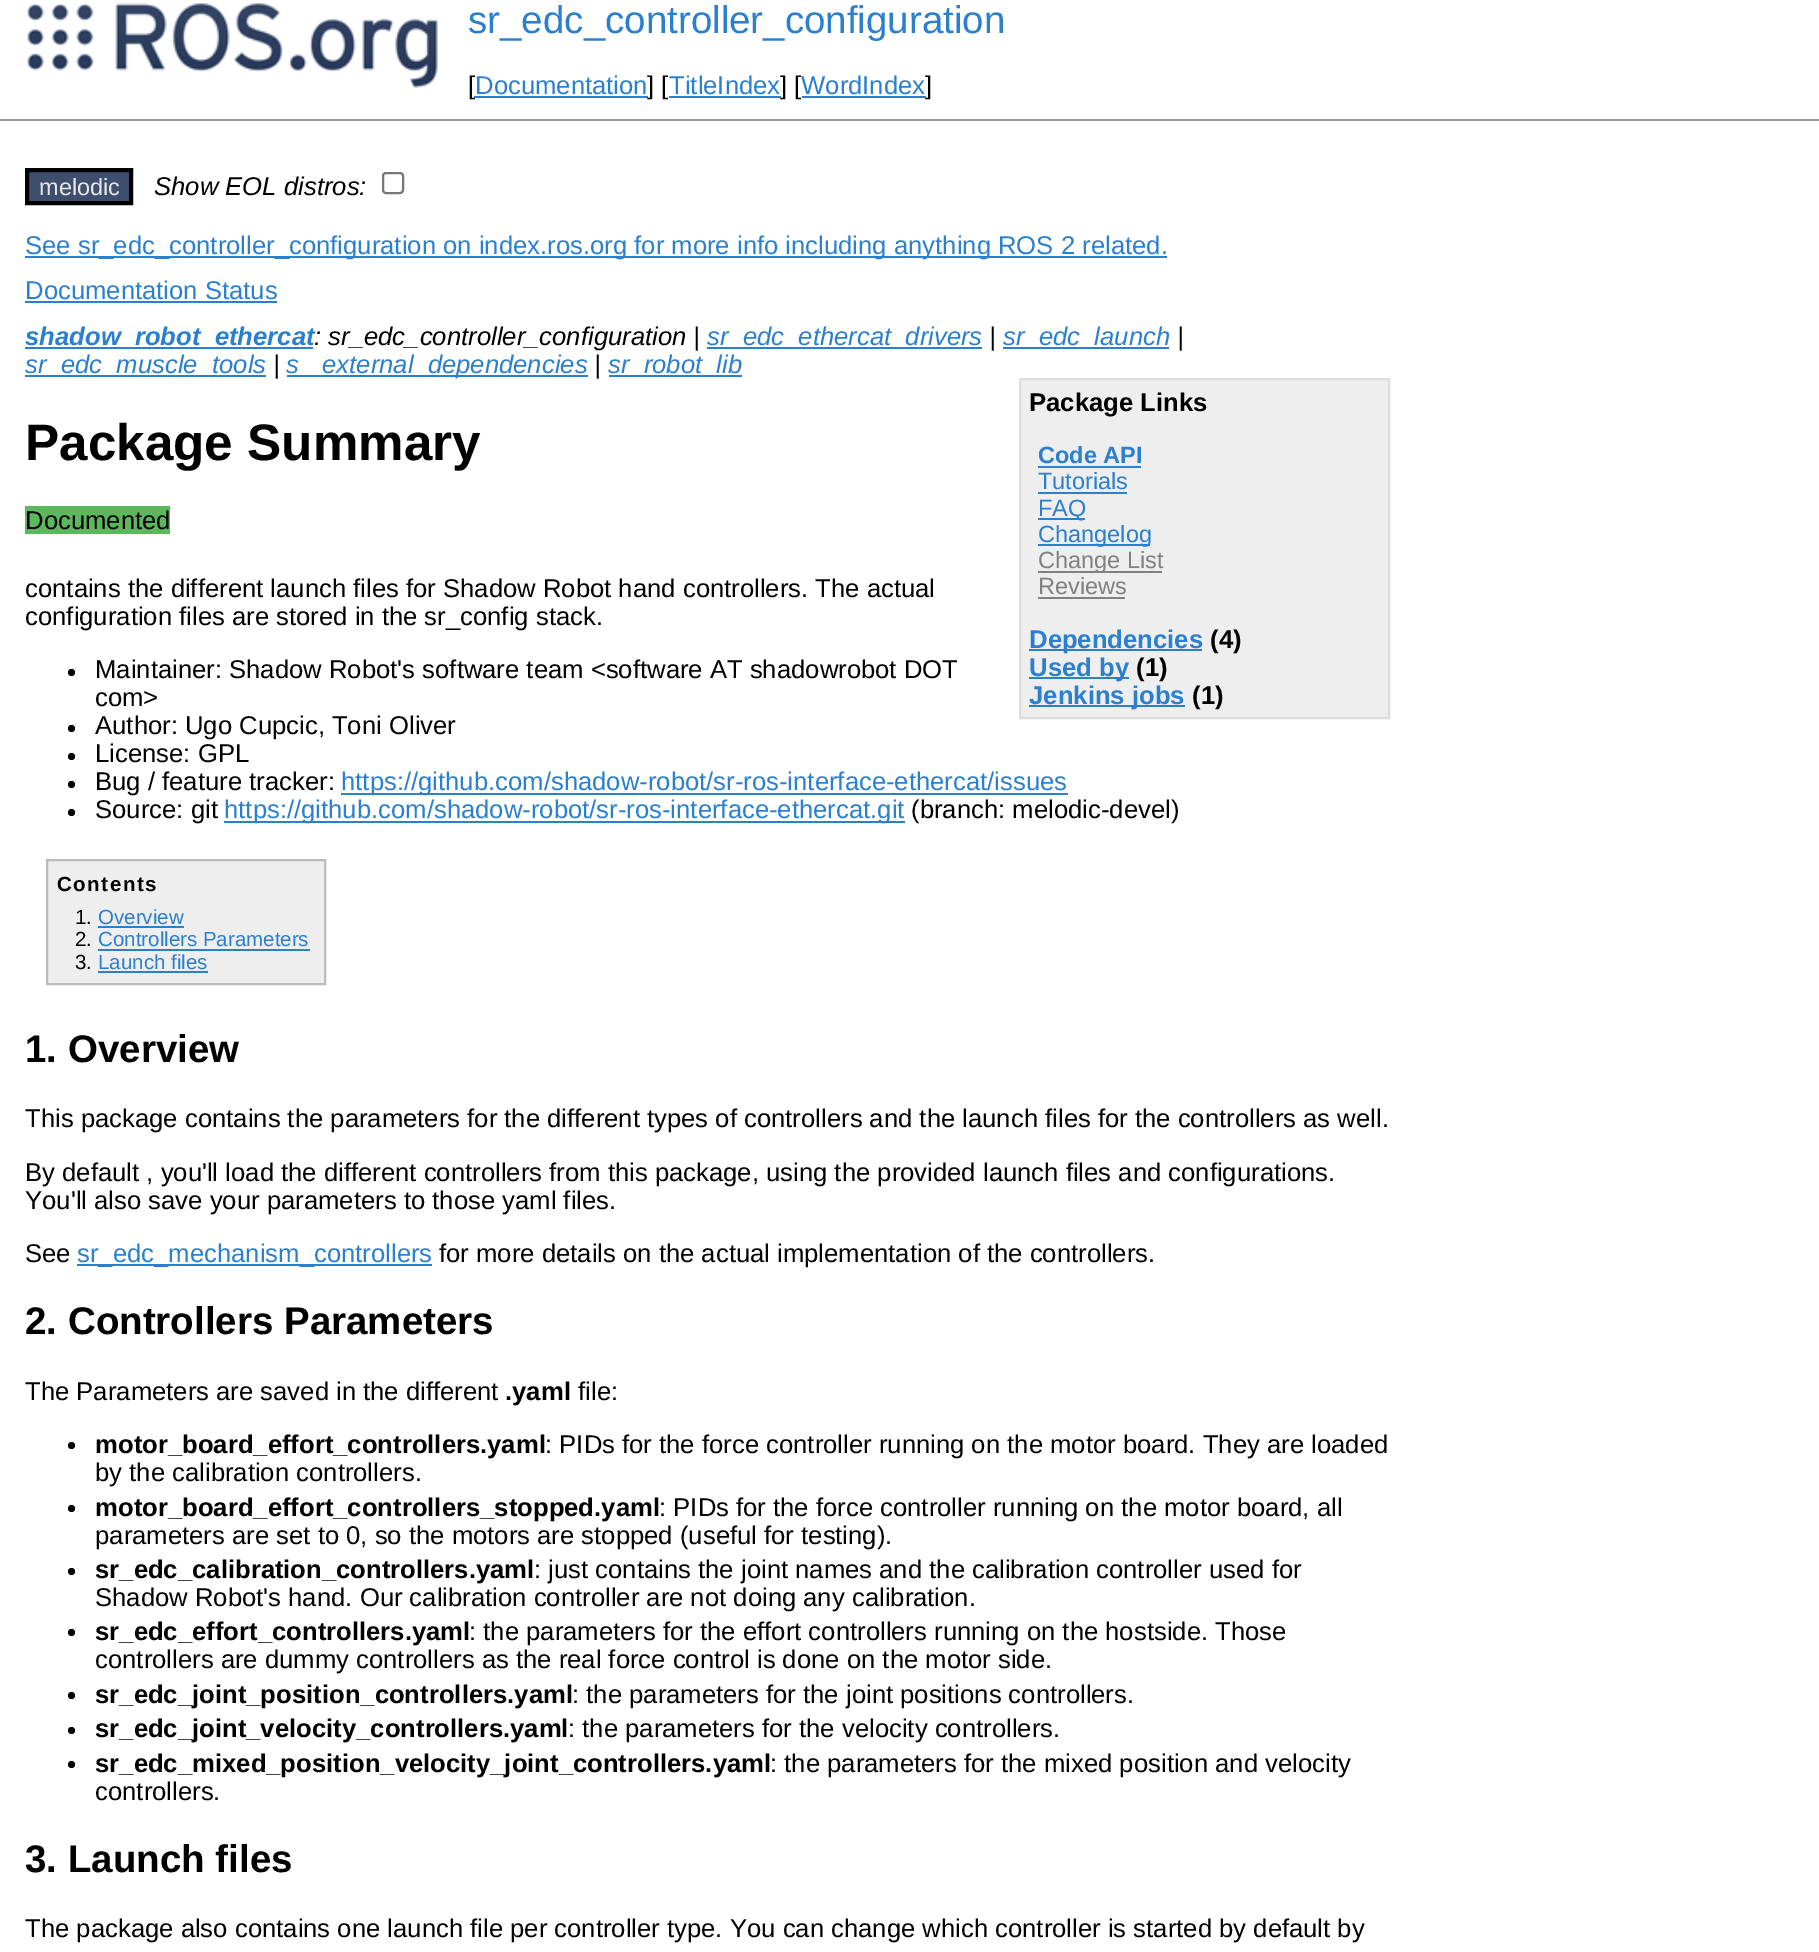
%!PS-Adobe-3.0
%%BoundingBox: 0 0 1819 1952
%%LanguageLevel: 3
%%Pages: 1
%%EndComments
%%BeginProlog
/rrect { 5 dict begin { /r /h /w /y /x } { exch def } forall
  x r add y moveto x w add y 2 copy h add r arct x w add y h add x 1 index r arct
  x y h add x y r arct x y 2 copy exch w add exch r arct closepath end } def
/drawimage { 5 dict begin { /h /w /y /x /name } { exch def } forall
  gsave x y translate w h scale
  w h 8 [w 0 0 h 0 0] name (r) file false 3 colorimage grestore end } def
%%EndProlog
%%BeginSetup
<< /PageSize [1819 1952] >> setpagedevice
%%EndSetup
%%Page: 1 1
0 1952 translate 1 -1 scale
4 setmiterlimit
1 setgray
0 0 1819 1952 rectfill
(images/1.raw) 27 3 411 85 drawimage
0.169 0.498 0.812 setrgbcolor
669 96 112 2 rectfill
802 96 124 2 rectfill
0.612 setgray
0 119 1819 2 rectfill
0.243 0.31 0.431 setrgbcolor
newpath 27 170 moveto 131 170 lineto 131 203 lineto 27 203 lineto closepath gsave fill grestore
0 setgray
4 setlinewidth
stroke
0.463 setgray
2 setlinewidth
383 173 20 20 3 rrect stroke
0.169 0.498 0.812 setrgbcolor
25 256 1142 2 rectfill
25 301 252 2 rectfill
25 347 288 2 rectfill
707 347 275 2 rectfill
1003 347 166 2 rectfill
25 375 241 2 rectfill
287 375 301 2 rectfill
609 375 133 2 rectfill
0.933 setgray
newpath 1020 379 moveto 1389 379 lineto 1389 718 lineto 1020 718 lineto closepath gsave fill grestore
0.867 setgray
stroke
0.169 0.498 0.812 setrgbcolor
1038 466 103 2 rectfill
1038 492 89 2 rectfill
1038 518 47 2 rectfill
1038 544 112 2 rectfill
0.502 setgray
1038 571 124 2 rectfill
1038 597 87 2 rectfill
0.169 0.498 0.812 setrgbcolor
1029 649 173 2 rectfill
1029 677 100 2 rectfill
1029 705 156 2 rectfill
0.361 0.722 0.361 setrgbcolor
25 506 145 28 rectfill
0 setgray
newpath 71.5 672.5 3.5 0 360 arc closepath fill
newpath 71.5 728.5 3.5 0 360 arc closepath fill
newpath 71.5 756.5 3.5 0 360 arc closepath fill
newpath 71.5 784.5 3.5 0 360 arc closepath fill
0.169 0.498 0.812 setrgbcolor
341 793 727 2 rectfill
0 setgray
newpath 71.5 812.5 3.5 0 360 arc closepath fill
0.169 0.498 0.812 setrgbcolor
224 821 681 2 rectfill
0.933 setgray
newpath 47 860 moveto 325 860 lineto 325 984 lineto 47 984 lineto closepath gsave fill grestore
0.733 setgray
stroke
0.169 0.498 0.812 setrgbcolor
98 926 86 2 rectfill
98 949 212 2 rectfill
98 971 110 2 rectfill
77 1264 355 2 rectfill
0 setgray
newpath 71.5 1445.5 3.5 0 360 arc closepath fill
newpath 71.5 1508.5 3.5 0 360 arc closepath fill
newpath 71.5 1571.5 3.5 0 360 arc closepath fill
newpath 71.5 1632.5 3.5 0 360 arc closepath fill
newpath 71.5 1695.5 3.5 0 360 arc closepath fill
newpath 71.5 1730.5 3.5 0 360 arc closepath fill
newpath 71.5 1764.5 3.5 0 360 arc closepath fill
/LiberationSans-Regular [38.5 0 0 -38.5 0 0] selectfont
0.169 0.498 0.812 setrgbcolor
468 33 moveto (sr_edc_controller_configuration) show
/LiberationSans-Regular [25.67 0 0 -25.67 0 0] selectfont
0 setgray
468 94 moveto ([) show
0.169 0.498 0.812 setrgbcolor
475 94 moveto (Documentation) show
474 96 174 2 rectfill
0 setgray
647 94 moveto (] [) show
0.169 0.498 0.812 setrgbcolor
669 94 moveto (TitleIndex) show
0 setgray
780 94 moveto (] [) show
0.169 0.498 0.812 setrgbcolor
801 94 moveto (WordIndex) show
0 setgray
925 94 moveto (]) show
/LiberationSans-Regular [23.5 0 0 -23.5 0 0] selectfont
0.902 setgray
39 195 moveto (melodic) show
/LiberationSans-Italic [25.67 0 0 -25.67 0 0] selectfont
0 setgray
154 195 moveto (Show EOL distros:) show
/LiberationSans-Regular [25.67 0 0 -25.67 0 0] selectfont
0.169 0.498 0.812 setrgbcolor
25 254 moveto (See sr_edc_controller_configuration on index.ros.org for more info including anything ROS 2 related.) show
25 299 moveto (Documentation Status) show
/LiberationSans-BoldItalic [25.67 0 0 -25.67 0 0] selectfont
25 345 moveto (shadow_robot_ethercat) show
/LiberationSans-Italic [25.67 0 0 -25.67 0 0] selectfont
0 setgray
314 345 moveto (: sr_edc_controller_configuration |) show
0.169 0.498 0.812 setrgbcolor
707 345 moveto (sr_edc_ethercat_drivers) show
0 setgray
989 345 moveto (|) show
0.169 0.498 0.812 setrgbcolor
1003 345 moveto (sr_edc_launch) show
0 setgray
1177 345 moveto (|) show
0.169 0.498 0.812 setrgbcolor
25 373 moveto (sr_edc_muscle_tools) show
0 setgray
273 373 moveto (|) show
0.169 0.498 0.812 setrgbcolor
286 373 moveto (s) show
322 373 moveto (external_dependencies) show
0 setgray
594 373 moveto (|) show
0.169 0.498 0.812 setrgbcolor
608 373 moveto (sr_robot_lib) show
/LiberationSans-Bold [51.25 0 0 -51.25 0 0] selectfont
0 setgray
25 460 moveto (Package Summary) show
/LiberationSans-Bold [25.67 0 0 -25.67 0 0] selectfont
1029 411 moveto (Package Links) show
/LiberationSans-Bold [23.5 0 0 -23.5 0 0] selectfont
0.169 0.498 0.812 setrgbcolor
1038 463 moveto (Code API) show
/LiberationSans-Regular [23.5 0 0 -23.5 0 0] selectfont
1038 489 moveto (Tutorials) show
1038 516 moveto (FAQ) show
1038 542 moveto (Changelog) show
0.502 setgray
1038 568 moveto (Change List) show
1038 594 moveto (Reviews) show
/LiberationSans-Bold [25.67 0 0 -25.67 0 0] selectfont
0.169 0.498 0.812 setrgbcolor
1029 648 moveto (Dependencies) show
0 setgray
1210 648 moveto (\(4\)) show
0.169 0.498 0.812 setrgbcolor
1029 676 moveto (Used by) show
0 setgray
1136 676 moveto (\(1\)) show
0.169 0.498 0.812 setrgbcolor
1029 704 moveto (Jenkins jobs) show
0 setgray
1192 704 moveto (\(1\)) show
/LiberationSans-Regular [25.67 0 0 -25.67 0 0] selectfont
25 529 moveto (Documented) show
25 597 moveto (contains the different launch files for Shadow Robot hand controllers. The actual) show
25 625 moveto (configuration files are stored in the sr_config stack.) show
95 678 moveto (Maintainer: Shadow Robot's software team <software AT shadowrobot DOT) show
95 706 moveto (com>) show
95 734 moveto (Author: Ugo Cupcic, Toni Oliver) show
95 762 moveto (License: GPL) show
95 790 moveto (Bug / feature tracker:) show
0.169 0.498 0.812 setrgbcolor
341 790 moveto (https://github.com/shadow-robot/sr-ros-interface-ethercat/issues) show
0 setgray
95 818 moveto (Source: git) show
0.169 0.498 0.812 setrgbcolor
224 818 moveto (https://github.com/shadow-robot/sr-ros-interface-ethercat.git) show
0 setgray
911 818 moveto (\(branch: melodic-devel\)) show
/LiberationSans-Bold [20.5 0 0 -20.5 0 0] selectfont
57 891 moveto 1.5 0 (Contents) ashow
/LiberationSans-Regular [20.5 0 0 -20.5 0 0] selectfont
75 924 moveto (1.) show
0.169 0.498 0.812 setrgbcolor
98 924 moveto (Overview) show
0 setgray
75 946 moveto (2.) show
0.169 0.498 0.812 setrgbcolor
98 946 moveto (Controllers Parameters) show
0 setgray
75 969 moveto (3.) show
0.169 0.498 0.812 setrgbcolor
98 969 moveto (Launch files) show
/LiberationSans-Bold [38.5 0 0 -38.5 0 0] selectfont
0 setgray
25 1062 moveto (1. Overview) show
/LiberationSans-Regular [25.67 0 0 -25.67 0 0] selectfont
25 1127 moveto (This package contains the parameters for the different types of controllers and the launch files for the controllers as well.) show
25 1181 moveto (By default , you'll load the different controllers from this package, using the provided launch files and configurations.) show
25 1209 moveto (You'll also save your parameters to those yaml files.) show
25 1262 moveto (See) show
0.169 0.498 0.812 setrgbcolor
77 1262 moveto (sr_edc_mechanism_controllers) show
0 setgray
439 1262 moveto (for more details on the actual implementation of the controllers.) show
/LiberationSans-Bold [38.5 0 0 -38.5 0 0] selectfont
25 1334 moveto (2. Controllers Parameters) show
/LiberationSans-Regular [25.67 0 0 -25.67 0 0] selectfont
25 1400 moveto (The Parameters are saved in the different) show
/LiberationSans-Bold [25.67 0 0 -25.67 0 0] selectfont
505 1400 moveto (.yaml) show
/LiberationSans-Regular [25.67 0 0 -25.67 0 0] selectfont
578 1400 moveto (file:) show
/LiberationSans-Bold [25.67 0 0 -25.67 0 0] selectfont
95 1453 moveto (motor_board_effort_controllers.yaml) show
/LiberationSans-Regular [25.67 0 0 -25.67 0 0] selectfont
545 1453 moveto (: PIDs for the force controller running on the motor board. They are loaded) show
95 1481 moveto (by the calibration controllers.) show
/LiberationSans-Bold [25.67 0 0 -25.67 0 0] selectfont
95 1516 moveto (motor_board_effort_controllers_stopped.yaml) show
/LiberationSans-Regular [25.67 0 0 -25.67 0 0] selectfont
659 1516 moveto (: PIDs for the force controller running on the motor board, all) show
95 1544 moveto (parameters are set to 0, so the motors are stopped \(useful for testing\).) show
/LiberationSans-Bold [25.67 0 0 -25.67 0 0] selectfont
95 1578 moveto (sr_edc_calibration_controllers.yaml) show
/LiberationSans-Regular [25.67 0 0 -25.67 0 0] selectfont
534 1578 moveto (: just contains the joint names and the calibration controller used for) show
95 1606 moveto (Shadow Robot's hand. Our calibration controller are not doing any calibration.) show
/LiberationSans-Bold [25.67 0 0 -25.67 0 0] selectfont
95 1640 moveto (sr_edc_effort_controllers.yaml) show
/LiberationSans-Regular [25.67 0 0 -25.67 0 0] selectfont
469 1640 moveto (: the parameters for the effort controllers running on the hostside. Those) show
95 1668 moveto (controllers are dummy controllers as the real force control is done on the motor side.) show
/LiberationSans-Bold [25.67 0 0 -25.67 0 0] selectfont
95 1703 moveto (sr_edc_joint_position_controllers.yaml) show
/LiberationSans-Regular [25.67 0 0 -25.67 0 0] selectfont
572 1703 moveto (: the parameters for the joint positions controllers.) show
/LiberationSans-Bold [25.67 0 0 -25.67 0 0] selectfont
95 1737 moveto (sr_edc_joint_velocity_controllers.yaml) show
/LiberationSans-Regular [25.67 0 0 -25.67 0 0] selectfont
568 1737 moveto (: the parameters for the velocity controllers.) show
/LiberationSans-Bold [25.67 0 0 -25.67 0 0] selectfont
95 1772 moveto (sr_edc_mixed_position_velocity_joint_controllers.yaml) show
/LiberationSans-Regular [25.67 0 0 -25.67 0 0] selectfont
770 1772 moveto (: the parameters for the mixed position and velocity) show
95 1800 moveto (controllers.) show
/LiberationSans-Bold [38.5 0 0 -38.5 0 0] selectfont
25 1872 moveto (3. Launch files) show
/LiberationSans-Regular [25.67 0 0 -25.67 0 0] selectfont
25 1937 moveto (The package also contains one launch file per controller type. You can change which controller is started by default by) show
showpage
%%EOF
